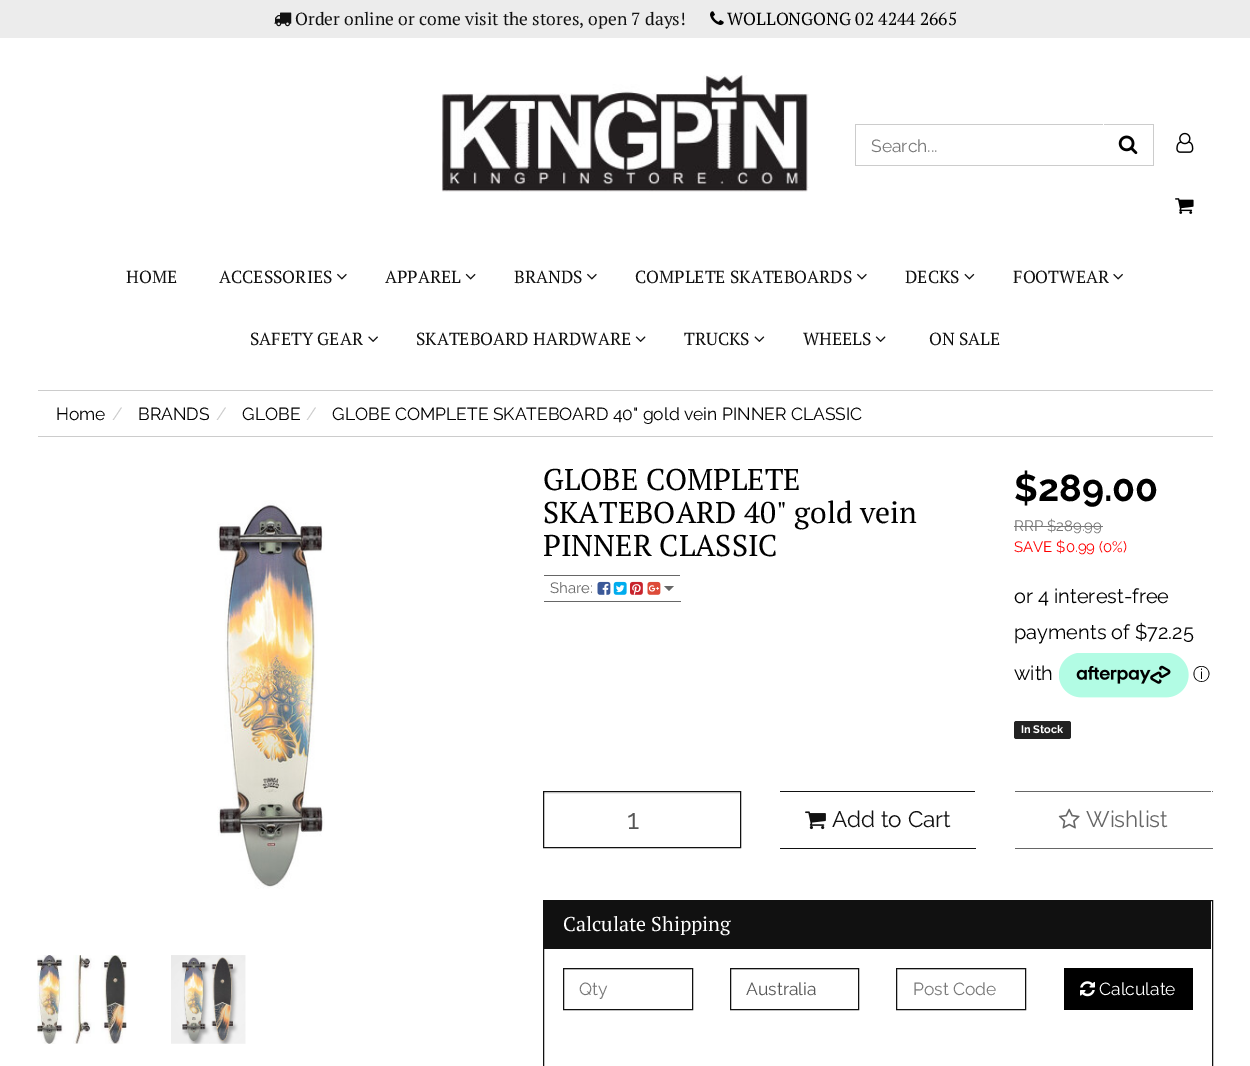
%!PS-Adobe-3.0
%%BoundingBox: 0 0 1250 1066
%%LanguageLevel: 3
%%Pages: 1
%%EndComments
%%BeginProlog
/rrect { 5 dict begin { /r /h /w /y /x } { exch def } forall
  x r add y moveto x w add y 2 copy h add r arct x w add y h add x 1 index r arct
  x y h add x y r arct x y 2 copy exch w add exch r arct closepath end } def
/drawimage { 5 dict begin { /h /w /y /x /name } { exch def } forall
  gsave x y translate w h scale
  w h 8 [w 0 0 h 0 0] name (r) file false 3 colorimage grestore end } def
%%EndProlog
%%BeginSetup
<< /PageSize [1250 1066] >> setpagedevice
%%EndSetup
%%Page: 1 1
0 1066 translate 1 -1 scale
4 setmiterlimit
1 setgray
0 0 1250 1066 rectfill
0.925 setgray
0 0 1250 38 rectfill
(images/1.raw) 274 12 18 15 drawimage
(images/2.raw) 710 11 14 14 drawimage
(images/3.raw) 441 75 368 117 drawimage
0.8 setgray
855 124 299 1 rectfill
1153 124 1 42 rectfill
1103 165 51 1 rectfill
(images/4.raw) 1118 135 20 20 drawimage
1 setgray
1103 124 1 42 rectfill
0.8 setgray
855 165 249 1 rectfill
855 124 1 42 rectfill
(images/5.raw) 1176 132 18 21 drawimage
(images/6.raw) 1175 198 19 16 drawimage
(images/7.raw) 337 273 10 7 drawimage
(images/8.raw) 465 273 11 7 drawimage
(images/7.raw) 587 273 10 7 drawimage
(images/7.raw) 857 273 10 7 drawimage
(images/9.raw) 964 273 11 7 drawimage
(images/10.raw) 1113 273 10 7 drawimage
(images/11.raw) 368 336 10 6 drawimage
(images/12.raw) 635 336 11 6 drawimage
(images/13.raw) 754 336 11 6 drawimage
(images/12.raw) 875 336 11 6 drawimage
38 390 1175 1 rectfill
38 436 1175 1 rectfill
(images/14.raw) 217 500 108 389 drawimage
(images/15.raw) 37 955 90 89 drawimage
(images/16.raw) 171 955 75 89 drawimage
0.4 setgray
543 575 138 1 rectfill
1 setgray
680 575 1 1 rectfill
0.4 setgray
543 601 138 1 rectfill
1 setgray
543 575 1 28 rectfill
(images/17.raw) 597 581 14 14 drawimage
(images/18.raw) 613 581 14 14 drawimage
(images/19.raw) 630 581 13 14 drawimage
(images/20.raw) 647 581 14 14 drawimage
0.4 setgray
newpath 664 586 moveto 674 586 lineto 669 591 lineto closepath fill
0.467 setgray
1014 526 89 1 rectfill
(images/21.raw) 1059 653 130 45 drawimage
0.133 setgray
1014 721 57 18 2.5 rrect fill
0.925 setgray
544 793 196 1 rectfill
0.067 setgray
543.5 791.5 197 56 rectstroke
779 791 197 1 rectfill
1 setgray
975 791 1 1 rectfill
0.067 setgray
779 848 197 1 rectfill
1 setgray
779 791 1 58 rectfill
(images/22.raw) 805 811 21 19 drawimage
0.4 setgray
1014 791 199 1 rectfill
1 setgray
1211 791 1 1 rectfill
0.4 setgray
1014 848 199 1 rectfill
1 setgray
1014 791 1 58 rectfill
(images/23.raw) 1058 808 22 21 drawimage
0.067 setgray
543.5 900.5 669 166 rectstroke
544 901 667 48 rectfill
0.925 setgray
564 969 127 1 rectfill
0.067 setgray
563.5 968.5 129 41 rectstroke
0.925 setgray
731 969 127 1 rectfill
0.067 setgray
730.5 968.5 128 41 rectstroke
0.925 setgray
898 969 127 1 rectfill
0.067 setgray
896.5 968.5 129 41 rectstroke
0 setgray
1064 968 129 42 rectfill
(images/24.raw) 1080 981 15 16 drawimage
/PTSerif-Regular [17.5 0 0 -17.5 0 0] selectfont
0.067 setgray
295 25 moveto (Order online or come visit the stores, open 7 days!) show
0 setgray
727 25 moveto (WOLLONGONG 02 4244 2665) show
/Raleway-Regular [17.5 0 0 -17.5 0 0] selectfont
0.467 setgray
871 152 moveto (Search...) show
/PTSerif-Regular [17.5 0 0 -17.5 0 0] selectfont
0.067 setgray
126 283 moveto (HOME) show
219 283 moveto (ACCESSORIES) show
385 283 moveto (APPAREL) show
514 283 moveto (BRANDS) show
635 283 moveto (COMPLETE SKATEBOARDS) show
905 283 moveto (DECKS) show
1013 283 moveto (FOOTWEAR) show
250 345 moveto (SAFETY GEAR) show
416 345 moveto (SKATEBOARD HARDWARE) show
684 345 moveto (TRUCKS) show
803 345 moveto (WHEELS) show
929 345 moveto (ON SALE) show
/Raleway-Regular [17.5 0 0 -17.5 0 0] selectfont
0 setgray
56 420 moveto (Home) show
0.8 setgray
112 420 moveto (/) show
0 setgray
138 420 moveto (BRANDS) show
0.8 setgray
216 420 moveto (/) show
0 setgray
242 420 moveto (GLOBE) show
0.8 setgray
306 420 moveto (/) show
0 setgray
332 420 moveto (GLOBE COMPLETE SKATEBOARD 40" gold vein PINNER CLASSIC) show
/PTSerif-Regular [30 0 0 -30 0 0] selectfont
543 490 moveto (GLOBE COMPLETE) show
543 523 moveto (SKATEBOARD 40" gold vein) show
543 556 moveto (PINNER CLASSIC) show
/Raleway-Regular [15 0 0 -15 0 0] selectfont
0.4 setgray
550 593 moveto (Share:) show
/Raleway-Bold [37.5 0 0 -37.5 0 0] selectfont
0 setgray
1014 501 moveto ($289.00) show
/Raleway-Regular [15 0 0 -15 0 0] selectfont
0.467 setgray
1014 531 moveto (RRP $289.99) show
1 0 0 setrgbcolor
1014 552 moveto (SAVE $0.99 \(0%\)) show
/Raleway-Regular [20 0 0 -20 0 0] selectfont
0 setgray
1014 603 moveto (or 4 interest-free) show
1014 639 moveto (payments of $72.25) show
1014 680 moveto (with) show
/WenQuanYiZenHei-Medium [17 0 0 -17 0 0] selectfont
1193 680 moveto (ⓘ) show
/Raleway-Bold [11 0 0 -11 0 0] selectfont
1 setgray
1021 733 moveto (In Stock) show
/Raleway-Regular [28 0 0 -28 0 0] selectfont
0.333 setgray
627 829 moveto (1) show
/Raleway-Regular [22.5 0 0 -22.5 0 0] selectfont
0.067 setgray
832 827 moveto (Add to Cart) show
0.4 setgray
1086 827 moveto (Wishlist) show
/PTSerif-Regular [20 0 0 -20 0 0] selectfont
1 setgray
563 931 moveto (Calculate Shipping) show
/Raleway-Regular [17.5 0 0 -17.5 0 0] selectfont
0.467 setgray
579 995 moveto (Qty) show
0.333 setgray
746 995 moveto (Australia) show
0.467 setgray
913 995 moveto (Post Code) show
1 setgray
1099 995 moveto (Calculate) show
showpage
%%EOF
